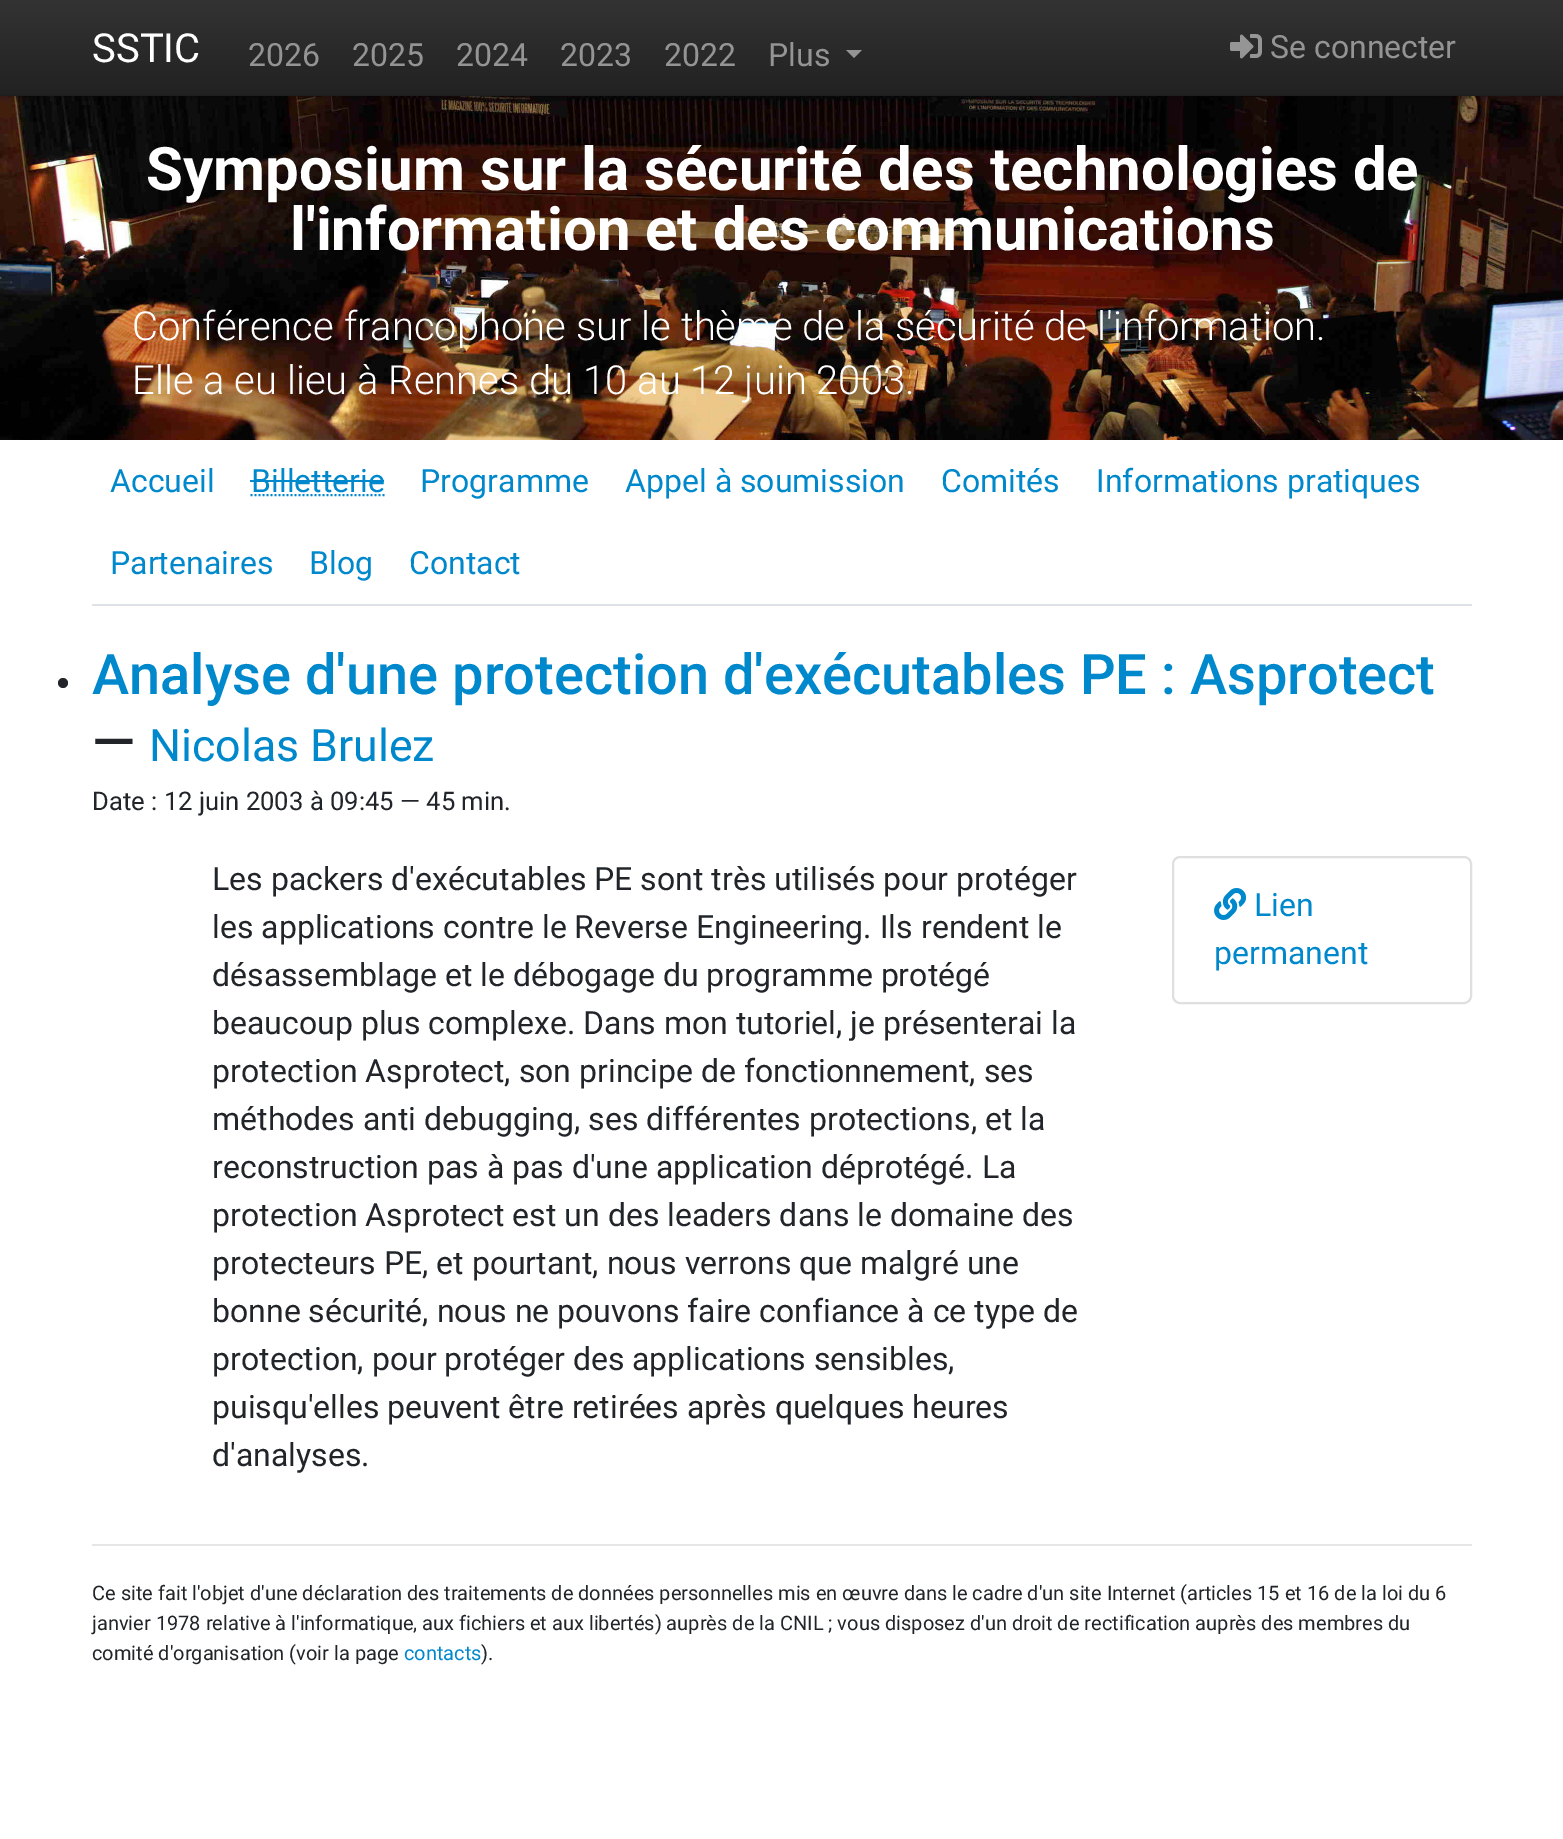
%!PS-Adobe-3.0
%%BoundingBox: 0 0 1563 1839
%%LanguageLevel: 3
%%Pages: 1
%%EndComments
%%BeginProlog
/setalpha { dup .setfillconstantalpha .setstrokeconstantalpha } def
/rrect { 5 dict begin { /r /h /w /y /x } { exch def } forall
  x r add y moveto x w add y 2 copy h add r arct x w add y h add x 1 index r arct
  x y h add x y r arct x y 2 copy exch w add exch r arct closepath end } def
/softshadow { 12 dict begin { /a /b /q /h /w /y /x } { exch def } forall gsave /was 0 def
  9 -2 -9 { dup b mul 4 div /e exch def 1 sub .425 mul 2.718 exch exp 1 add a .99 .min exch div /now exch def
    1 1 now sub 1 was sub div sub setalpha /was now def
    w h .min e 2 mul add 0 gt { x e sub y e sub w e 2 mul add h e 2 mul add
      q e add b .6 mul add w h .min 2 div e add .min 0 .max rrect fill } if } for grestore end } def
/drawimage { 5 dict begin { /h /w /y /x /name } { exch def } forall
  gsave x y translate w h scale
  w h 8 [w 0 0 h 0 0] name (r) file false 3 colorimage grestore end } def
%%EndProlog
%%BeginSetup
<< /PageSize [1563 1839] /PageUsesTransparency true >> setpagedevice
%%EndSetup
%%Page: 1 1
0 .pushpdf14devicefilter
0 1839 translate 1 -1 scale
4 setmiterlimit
1 setgray
0 0 1563 1839 rectfill
(images/2.raw) 0 96 1563 344 drawimage
0 setgray
0 2 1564 96 0 3 0.25 softshadow
gsave newpath 0 0 moveto 1563 0 lineto 1563 94 lineto 0 94 lineto closepath clip newpath
<< /ShadingType 2 /ColorSpace /DeviceRGB /Coords [0 0 0 96] /Extend [true true] /Function << /FunctionType 2 /Domain [0 1] /C0 [0.2 0.2 0.2] /C1 [0.133 0.133 0.133] /N 1 >> >> shfill grestore
0.122 setgray
0 94 1563 2 rectfill
0.58 setgray
newpath 846 50 moveto 862 50 lineto 854 58 lineto closepath fill
(images/1.raw) 1230 34 32 25 drawimage
0.871 0.886 0.902 setrgbcolor
92 604 1380 2 rectfill
0 0.533 0.8 setrgbcolor
2 setlinewidth
[2 2] 0 setdash
newpath 250.5 495 moveto 384.5 495 lineto stroke
250 480 134 2 rectfill
0.129 0.145 0.161 setrgbcolor
newpath 63 683 5 0 360 arc closepath fill
0.875 setgray
[] 0 setdash
1173 857 298 146 7 rrect stroke
(images/3.raw) 1214 888 33 32 drawimage
0.902 setgray
92 1544 1380 2 rectfill
/Roboto-Regular [40 0 0 -40 0 0] selectfont
1 setgray
92 62 moveto (SSTIC) show
/Roboto-Regular [32 0 0 -32 0 0] selectfont
0.58 setgray
248 66 moveto (2026) show
352 66 moveto (2025) show
456 66 moveto (2024) show
560 66 moveto (2023) show
664 66 moveto (2022) show
768 66 moveto (Plus) show
1270 58 moveto (Se connecter) show
/Roboto-Bold [60 0 0 -60 0 0] selectfont
1 setgray
146 190 moveto (Symposium sur la sécurité des technologies de) show
290 250 moveto (l'information et des communications) show
/Roboto-Light [40 0 0 -40 0 0] selectfont
132 340 moveto (Conférence francophone sur le thème de la sécurité de l'information.) show
132 394 moveto (Elle a eu lieu à Rennes du 10 au 12 juin 2003.) show
/Roboto-Regular [32 0 0 -32 0 0] selectfont
0 0.533 0.8 setrgbcolor
110 492 moveto (Accueil) show
251 492 moveto (Billetterie) show
420 492 moveto (Programme) show
625 492 moveto (Appel à soumission) show
941 492 moveto (Comités) show
1096 492 moveto (Informations pratiques) show
110 574 moveto (Partenaires) show
309 574 moveto (Blog) show
409 574 moveto (Contact) show
/Roboto-Medium [56 0 0 -56 0 0] selectfont
92 694 moveto (Analyse d'une protection d'exécutables PE : Asprotect) show
0.129 0.145 0.161 setrgbcolor
92 761 moveto (—) show
/Roboto-Regular [44.75 0 0 -44.75 0 0] selectfont
0 0.533 0.8 setrgbcolor
149 761 moveto (Nicolas Brulez) show
/Roboto-Regular [25.6 0 0 -25.6 0 0] selectfont
0.129 0.145 0.161 setrgbcolor
92 810 moveto (Date : 12 juin 2003 à 09:45 — 45 min.) show
/Roboto-Regular [32 0 0 -32 0 0] selectfont
212 890 moveto (Les packers d'exécutables PE sont très utilisés pour protéger) show
212 938 moveto (les applications contre le Reverse Engineering. Ils rendent le) show
212 986 moveto (désassemblage et le débogage du programme protégé) show
212 1034 moveto (beaucoup plus complexe. Dans mon tutoriel, je présenterai la) show
212 1082 moveto (protection Asprotect, son principe de fonctionnement, ses) show
212 1130 moveto (méthodes anti debugging, ses différentes protections, et la) show
212 1178 moveto (reconstruction pas à pas d'une application déprotégé. La) show
212 1226 moveto (protection Asprotect est un des leaders dans le domaine des) show
212 1274 moveto (protecteurs PE, et pourtant, nous verrons que malgré une) show
212 1322 moveto (bonne sécurité, nous ne pouvons faire confiance à ce type de) show
212 1370 moveto (protection, pour protéger des applications sensibles,) show
212 1418 moveto (puisqu'elles peuvent être retirées après quelques heures) show
212 1466 moveto (d'analyses.) show
0 0.533 0.8 setrgbcolor
1254 916 moveto (Lien) show
1214 964 moveto (permanent) show
/Roboto-Regular [20 0 0 -20 0 0] selectfont
0.129 0.145 0.161 setrgbcolor
92 1600 moveto (Ce site fait l'objet d'une déclaration des traitements de données personnelles mis en œuvre dans le cadre d'un site Internet \(articles 15 et 16 de la loi du 6) show
92 1630 moveto (janvier 1978 relative à l'informatique, aux fichiers et aux libertés\) auprès de la CNIL ; vous disposez d'un droit de rectification auprès des membres du) show
92 1660 moveto (comité d'organisation \(voir la page) show
0 0.533 0.8 setrgbcolor
404 1660 moveto (contacts) show
0.129 0.145 0.161 setrgbcolor
481 1660 moveto (\).) show
.poppdf14devicefilter showpage
%%EOF
